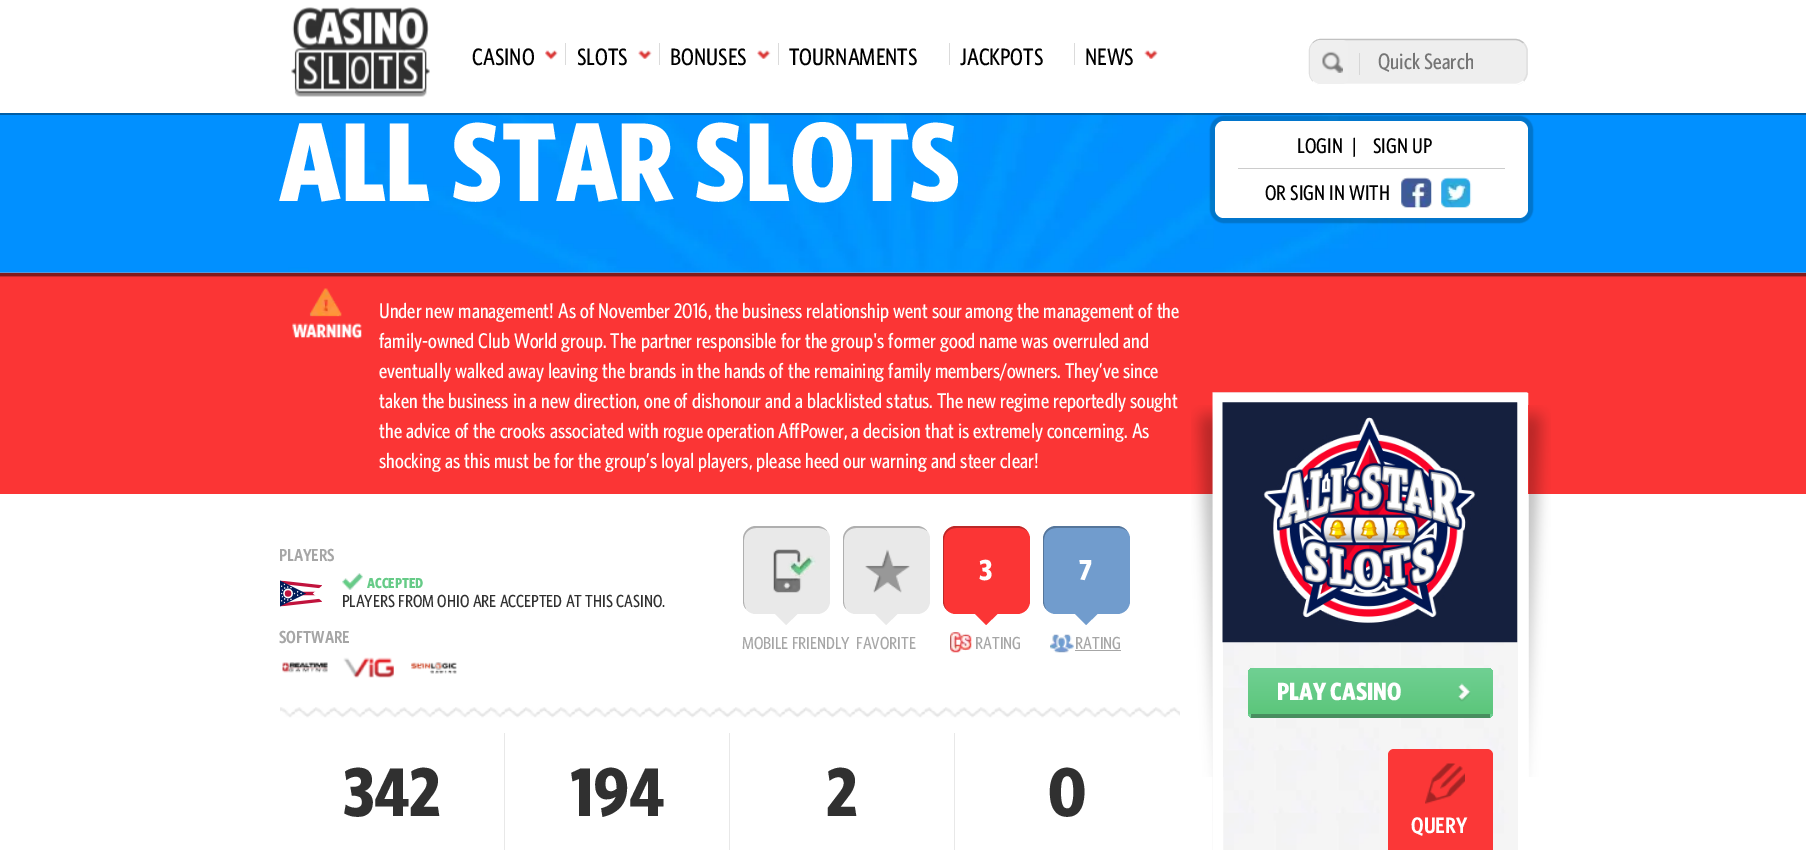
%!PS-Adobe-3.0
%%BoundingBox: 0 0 1806 850
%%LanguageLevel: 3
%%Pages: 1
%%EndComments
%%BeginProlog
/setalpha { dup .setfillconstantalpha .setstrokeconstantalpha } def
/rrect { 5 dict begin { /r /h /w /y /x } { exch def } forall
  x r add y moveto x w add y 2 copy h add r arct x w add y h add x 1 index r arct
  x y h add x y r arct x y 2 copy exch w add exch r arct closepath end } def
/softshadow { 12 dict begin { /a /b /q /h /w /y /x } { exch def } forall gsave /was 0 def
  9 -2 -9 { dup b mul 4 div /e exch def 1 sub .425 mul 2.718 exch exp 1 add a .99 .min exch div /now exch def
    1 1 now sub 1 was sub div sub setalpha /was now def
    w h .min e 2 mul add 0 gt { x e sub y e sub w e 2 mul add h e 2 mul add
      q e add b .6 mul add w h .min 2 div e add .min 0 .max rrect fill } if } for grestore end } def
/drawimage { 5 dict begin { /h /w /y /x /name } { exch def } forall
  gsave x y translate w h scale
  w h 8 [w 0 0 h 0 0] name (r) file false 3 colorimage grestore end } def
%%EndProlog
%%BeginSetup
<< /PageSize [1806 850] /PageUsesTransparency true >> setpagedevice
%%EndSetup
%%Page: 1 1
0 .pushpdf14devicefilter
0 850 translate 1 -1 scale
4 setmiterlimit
1 setgray
0 0 1806 850 rectfill
0.443 0.612 0.804 setrgbcolor
0 272 1806 1 rectfill
(images/7.raw) 0 113 1806 160 drawimage
0 setgray
1210 116 323 107 14 0.5 0.2 softshadow
0.35 setalpha
0 113 1806 2 rectfill
1 setalpha
(images/1.raw) 291 7 139 90 drawimage
(images/2.raw) 545 50 13 10 drawimage
0.859 setgray
565 43 1 22 rectfill
(images/3.raw) 638 50 14 9 drawimage
659 43 1 22 rectfill
(images/4.raw) 757 50 14 9 drawimage
778 43 1 22 rectfill
949 43 1 22 rectfill
1074 43 1 22 rectfill
(images/5.raw) 1144 50 14 9 drawimage
0.933 setgray
1309 39 219 46 13 rrect fill
0.757 setgray
1.2 setlinewidth
newpath 1313 43 moveto 1315 40.5 1318 39.5 1321 39.5 curveto 1515 39.5 lineto 1518 39.5 1521 40.5 1523.5 43 curveto stroke
0.875 setgray
newpath 1523.5 43 moveto 1525.5 45 1527 48 1527 51 curveto 1527 72.5 lineto 1527 75.5 1525.5 78.5 1523.5 81 curveto stroke
1 setgray
newpath 1523.5 81 moveto 1521 83 1518 84.5 1515 84.5 curveto 1321 84.5 lineto 1318 84.5 1315 83 1313 81 curveto stroke
0.875 setgray
newpath 1313 81 moveto 1310.5 78.5 1309.5 75.5 1309.5 72.5 curveto 1309.5 51 lineto 1309.5 48 1310.5 45 1313 43 curveto stroke
0.937 setgray
newpath 1321 40 moveto 1342 40 lineto 1345.5 40 1348 42.5 1348 46 curveto 1348 78 lineto 1348 81.5 1345.5 84 1342 84 curveto 1321 84 lineto 1315 84 1310 79 1310 73 curveto 1310 51 lineto 1310 45 1315 40 1321 40 curveto closepath fill
(images/6.raw) 1322 51 21 22 drawimage
0.839 setgray
1359 53 1 22 rectfill
1 setgray
1215 121 313 97 9 rrect fill
0.8 setgray
1238 168 267 1 rectfill
(images/8.raw) 1401 177 31 31 drawimage
(images/9.raw) 1441 177 31 31 drawimage
0.984 0.208 0.208 setrgbcolor
0 277 1806 217 rectfill
0.788 0.165 0.165 setrgbcolor
0 276 1806 1 rectfill
0.514 0.106 0.106 setrgbcolor
0 273 1806 3 rectfill
(images/10.raw) 292 288 70 51 drawimage
(images/11.raw) 280 580 42 27 drawimage
(images/12.raw) 342 573 21 17 drawimage
0.914 setgray
743 526 87 88 13 rrect fill
0.25 setalpha
0 setgray
newpath 756 528 moveto 819 528 lineto 822 528 825 529 827 531 curveto 825 528 821 526 817 526 curveto 756 526 lineto 749 526 743 532 743 539 curveto 743 601 lineto 743 604 744 607 746 609 curveto 745 607 744 605 744 602 curveto 744 540 lineto 744 533 749 528 756 528 curveto closepath fill
1 setalpha
(images/13.raw) 773 549 43 44 drawimage
0.914 setgray
newpath 775 614 moveto 797.5 614 lineto 786 625 lineto closepath fill
843 526 87 88 13 rrect fill
0.25 setalpha
0 setgray
newpath 856 528 moveto 919 528 lineto 922 528 925 529 927 531 curveto 925 528 921 526 917 526 curveto 856 526 lineto 849 526 843 532 843 539 curveto 843 601 lineto 843 604 844 607 846 609 curveto 845 607 844 605 844 602 curveto 844 540 lineto 844 533 849 528 856 528 curveto closepath fill
1 setalpha
(images/14.raw) 865 549 45 44 drawimage
0.914 setgray
newpath 875 614 moveto 897.5 614 lineto 886 625 lineto closepath fill
0.984 0.208 0.208 setrgbcolor
943 526 87 88 13 rrect fill
0.25 setalpha
0 setgray
newpath 956 528 moveto 1019 528 lineto 1022 528 1025 529 1027 531 curveto 1025 528 1021 526 1017 526 curveto 956 526 lineto 949 526 943 532 943 539 curveto 943 601 lineto 943 604 944 607 946 609 curveto 945 607 944 605 944 602 curveto 944 540 lineto 944 533 949 528 956 528 curveto closepath fill
1 setalpha
0.984 0.208 0.208 setrgbcolor
newpath 975 614 moveto 997.5 614 lineto 986 625 lineto closepath fill
(images/15.raw) 950 632 22 21 drawimage
0.443 0.612 0.804 setrgbcolor
1043 526 87 88 13 rrect fill
0.25 setalpha
0 setgray
newpath 1056 528 moveto 1119 528 lineto 1122 528 1125 529 1127 531 curveto 1125 528 1121 526 1117 526 curveto 1056 526 lineto 1049 526 1043 532 1043 539 curveto 1043 601 lineto 1043 604 1044 607 1046 609 curveto 1045 607 1044 605 1044 602 curveto 1044 540 lineto 1044 533 1049 528 1056 528 curveto closepath fill
1 setalpha
0.443 0.612 0.804 setrgbcolor
newpath 1075 614 moveto 1097.5 614 lineto 1086 625 lineto closepath fill
(images/16.raw) 1050 634 24 19 drawimage
0.651 setgray
1075 650 46 1 rectfill
(images/17.raw) 282 662 46 11 drawimage
(images/18.raw) 343 657 51 21 drawimage
(images/19.raw) 411 662 46 12 drawimage
(images/20.raw) 280 707 900 11 drawimage
0.91 setgray
504 733 1 117 rectfill
729 733 1 117 rectfill
954 733 1 117 rectfill
(images/21.raw) 1212 392 316 458 drawimage
1 setgray
10 setlinewidth
1218 398 305 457 rectstroke
(images/23.raw) 1222 402 296 241 drawimage
(images/22.raw) 1191 405 360 372 drawimage
gsave
1248 668 245 50 6 rrect clip newpath
gsave newpath 1254 668 moveto 1487 668 lineto 1490.5 668 1493 670.5 1493 674 curveto 1493 714 lineto 1248 714 lineto 1248 674 lineto 1248 670.5 1250.5 668 1254 668 curveto closepath clip newpath
<< /ShadingType 2 /ColorSpace /DeviceRGB /Coords [1370 668 1370 714] /Extend [true true] /Function << /FunctionType 2 /Domain [0 1] /C0 [0.439 0.816 0.576] /C1 [0.361 0.776 0.482] /N 1 >> >> shfill grestore
gsave newpath 1248 714 moveto 1493 714 lineto 1493 718 lineto 1248 718 lineto closepath clip newpath
<< /ShadingType 2 /ColorSpace /DeviceRGB /Coords [1370 714 1370 760] /Extend [true true] /Function << /FunctionType 2 /Domain [0 1] /C0 [0.439 0.816 0.576] /C1 [0.361 0.776 0.482] /N 1 >> >> shfill grestore
grestore
0.282 0.557 0.373 setrgbcolor
1251 714 239 4 rectfill
(images/24.raw) 1458 683 13 19 drawimage
0.984 0.216 0.216 setrgbcolor
1388 749 105 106 6 rrect fill
(images/25.raw) 1425 763 40 41 drawimage
/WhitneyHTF-Medium [23.75 0 0 -23.75 0 0] selectfont
0 setgray
472 65 moveto (CASINO) show
577 65 moveto (SLOTS) show
670 65 moveto (BONUSES) show
789 65 moveto (TOURNAMENTS) show
960 65 moveto (JACKPOTS) show
1085 65 moveto (NEWS) show
/WhitneyHTF-Medium [22.5 0 0 -22.5 0 0] selectfont
0.459 setgray
1378 69 moveto (Quick Search) show
/WhitneyHTF-Bold [112.5 0 0 -112.5 0 0] selectfont
1 setgray
279 201 moveto (ALL STAR SLOTS) show
/WhitneyHTF-Medium [21.25 0 0 -21.25 0 0] selectfont
0 setgray
1297 153 moveto (LOGIN) show
1352 153 moveto (|) show
1373 153 moveto (SIGN UP) show
1265 200 moveto (OR SIGN IN WITH) show
1 setgray
379 318 moveto (Under new management! As of November 2016, the business relationship went sour) show
965 318 moveto (among the management of the) show
379 348 moveto (family-owned Club World group. The partner responsible for the group's former good name was overruled and) show
379 378 moveto (eventually walked away leaving the brands in the hands of the remaining family members/owners. They’ve since) show
379 408 moveto (taken the business in a new direction, one of dishonour and a blacklisted status. The new regime reportedly sought) show
379 438 moveto (the advice of the crooks associated with rogue operation AffPower, a decision that is extremely concerning. As) show
379 468 moveto (shocking as this must be for the group’s loyal players, please heed our warning and steer clear!) show
/WhitneyHTF-SemiBold [17.5 0 0 -17.5 0 0] selectfont
0.651 setgray
279 561 moveto (PLAYERS) show
/WhitneyHTF-Bold [14.5 0 0 -14.5 0 0] selectfont
0.4 0.796 0.529 setrgbcolor
367 588 moveto (ACCEPTED) show
/WhitneyHTF-Medium [17.5 0 0 -17.5 0 0] selectfont
0.188 setgray
342 607 moveto (PLAYERS FROM OHIO ARE ACCEPTED AT THIS CASINO.) show
0.651 setgray
742 649 moveto (MOBILE FRIENDLY) show
856 649 moveto (FAVORITE) show
/WhitneyHTF-Bold [29 0 0 -29 0 0] selectfont
1 setgray
979 580 moveto (3) show
/WhitneyHTF-Medium [17.5 0 0 -17.5 0 0] selectfont
0.651 setgray
975 649 moveto (RATING) show
/WhitneyHTF-Bold [29 0 0 -29 0 0] selectfont
1 setgray
1079 580 moveto (7) show
/WhitneyHTF-Medium [17.5 0 0 -17.5 0 0] selectfont
0.651 setgray
1075 649 moveto (RATING) show
/WhitneyHTF-SemiBold [17.5 0 0 -17.5 0 0] selectfont
279 643 moveto (SOFTWARE) show
/WhitneyHTF-Bold [69 0 0 -69 0 0] selectfont
0.188 setgray
343 816 moveto (342) show
571 816 moveto (194) show
826 816 moveto (2) show
1048 816 moveto (0) show
/WhitneyHTF-Bold [25 0 0 -25 0 0] selectfont
1 setgray
1277 700 moveto (PLAY CASINO) show
/WhitneyHTF-SemiBold [22.5 0 0 -22.5 0 0] selectfont
1411 833 moveto (QUERY) show
.poppdf14devicefilter showpage
%%EOF
